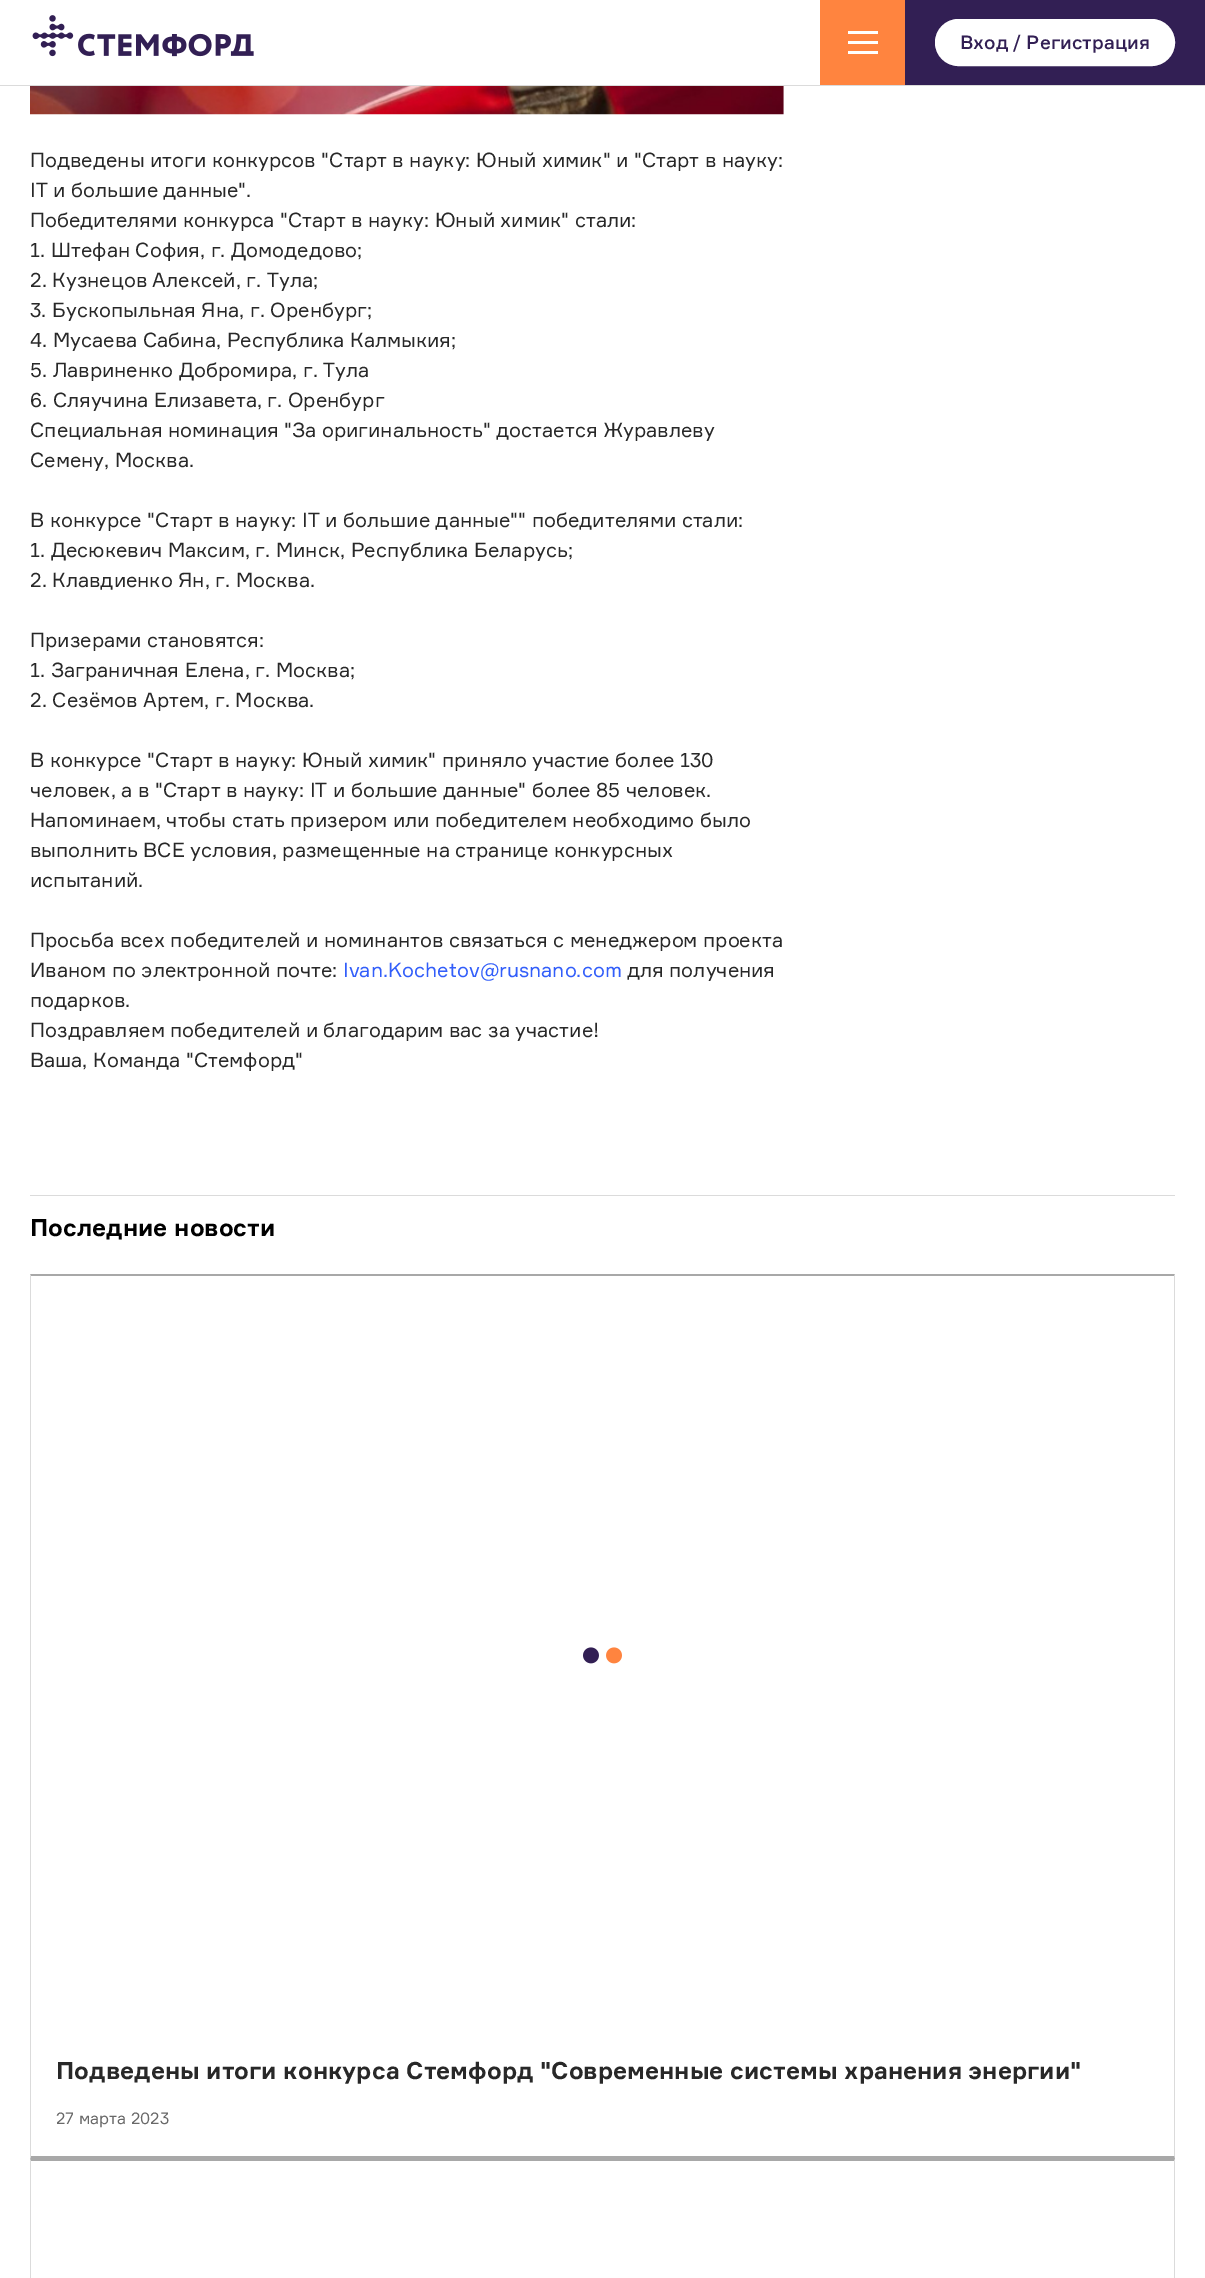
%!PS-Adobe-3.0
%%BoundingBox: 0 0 1205 2278
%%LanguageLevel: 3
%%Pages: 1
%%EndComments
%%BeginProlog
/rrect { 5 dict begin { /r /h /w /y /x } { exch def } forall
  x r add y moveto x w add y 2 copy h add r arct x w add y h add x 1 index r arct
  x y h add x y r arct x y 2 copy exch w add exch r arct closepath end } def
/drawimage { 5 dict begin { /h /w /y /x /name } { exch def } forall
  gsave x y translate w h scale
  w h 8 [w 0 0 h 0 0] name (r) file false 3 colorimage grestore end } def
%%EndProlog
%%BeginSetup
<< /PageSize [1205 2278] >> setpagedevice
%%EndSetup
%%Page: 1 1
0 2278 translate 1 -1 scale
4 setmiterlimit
1 setgray
0 0 1205 2278 rectfill
0.859 setgray
0 85 1205 1 rectfill
(images/1.raw) 32 15 222 42 drawimage
1 0.518 0.247 setrgbcolor
820 0 85 85 rectfill
1 setgray
848 31 30 3 rectfill
848 41 30 3 rectfill
848 51 30 3 rectfill
0.196 0.122 0.329 setrgbcolor
905 0 300 85 rectfill
1 setgray
935.5 19.5 239 46 23 rrect gsave fill grestore
stroke
(images/2.raw) 30 86 754 29 drawimage
0.859 setgray
30 1195 1145 1 rectfill
0.659 setgray
newpath 30 1274 moveto 1175 1274 lineto 1174 1276 lineto 31 1276 lineto closepath fill
0.859 setgray
newpath 1175 1274 moveto 1175 2159 lineto 1174 2156 lineto 1174 1276 lineto closepath fill
0.659 setgray
newpath 1175 2159 moveto 30 2159 lineto 31 2156 lineto 1174 2156 lineto closepath fill
0.859 setgray
newpath 30 2159 moveto 30 1274 lineto 31 1276 lineto 31 2156 lineto closepath fill
(images/3.raw) 583 1647 39 17 drawimage
0.659 setgray
newpath 30 2159 moveto 1175 2159 lineto 1174 2161 lineto 31 2161 lineto closepath fill
0.859 setgray
newpath 1175 2159 moveto 1175 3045 lineto 1174 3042 lineto 1174 2161 lineto closepath fill
newpath 30 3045 moveto 30 2159 lineto 31 2161 lineto 31 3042 lineto closepath fill
/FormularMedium-Medium [18.75 0 0 -18.75 0 0] selectfont
0.196 0.122 0.329 setrgbcolor
960 49 moveto (Вход / Регистрация) show
/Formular-Regular [20 0 0 -20 0 0] selectfont
0.157 setgray
30 167 moveto (Подведены итоги конкурсов "Старт в науку: Юный химик" и "Старт в науку:) show
30 197 moveto (IT и большие данные".) show
30 227 moveto (Победителями конкурса "Старт в науку: Юный химик" стали:) show
30 257 moveto (1. Штефан София, г. Домодедово;) show
30 287 moveto (2. Кузнецов Алексей, г. Тула;) show
30 317 moveto (3. Бускопыльная Яна, г. Оренбург;) show
30 347 moveto (4. Мусаева Сабина, Республика Калмыкия;) show
30 377 moveto (5. Лавриненко Добромира, г. Тула) show
30 407 moveto (6. Сляучина Елизавета, г. Оренбург) show
30 437 moveto (Специальная номинация "За оригинальность" достается Журавлеву) show
30 467 moveto (Семену, Москва.) show
30 527 moveto (В конкурсе "Старт в науку: IT и большие данные"" победителями стали:) show
30 557 moveto (1. Десюкевич Максим, г. Минск, Республика Беларусь;) show
30 587 moveto (2. Клавдиенко Ян, г. Москва.) show
30 647 moveto (Призерами становятся:) show
30 677 moveto (1. Заграничная Елена, г. Москва;) show
30 707 moveto (2. Сезёмов Артем, г. Москва.) show
30 767 moveto (В конкурсе "Старт в науку: Юный химик" приняло участие более 130) show
30 797 moveto (человек, а в "Старт в науку: IT и большие данные" более 85 человек.) show
30 827 moveto (Напоминаем, чтобы стать призером или победителем необходимо было) show
30 857 moveto (выполнить ВСЕ условия, размещенные на странице конкурсных) show
30 887 moveto (испытаний.) show
30 947 moveto (Просьба всех победителей и номинантов связаться с менеджером проекта) show
30 977 moveto (Иваном по электронной почте:) show
0.196 0.369 0.98 setrgbcolor
343 977 moveto (Ivan.Kochetov@rusnano.com) show
0.157 setgray
627 977 moveto (для получения) show
30 1007 moveto (подарков.) show
30 1037 moveto (Поздравляем победителей и благодарим вас за участие!) show
30 1067 moveto (Ваша, Команда "Стемфорд") show
/Formular-Bold [23.75 0 0 -23.75 0 0] selectfont
0 setgray
30 1236 moveto (Последние новости) show
0.157 setgray
56 2079 moveto (Подведены итоги конкурса Стемфорд "Современные системы хранения энергии") show
/Formular-Regular [16.25 0 0 -16.25 0 0] selectfont
0.412 setgray
56 2124 moveto (27 марта 2023) show
showpage
%%EOF
